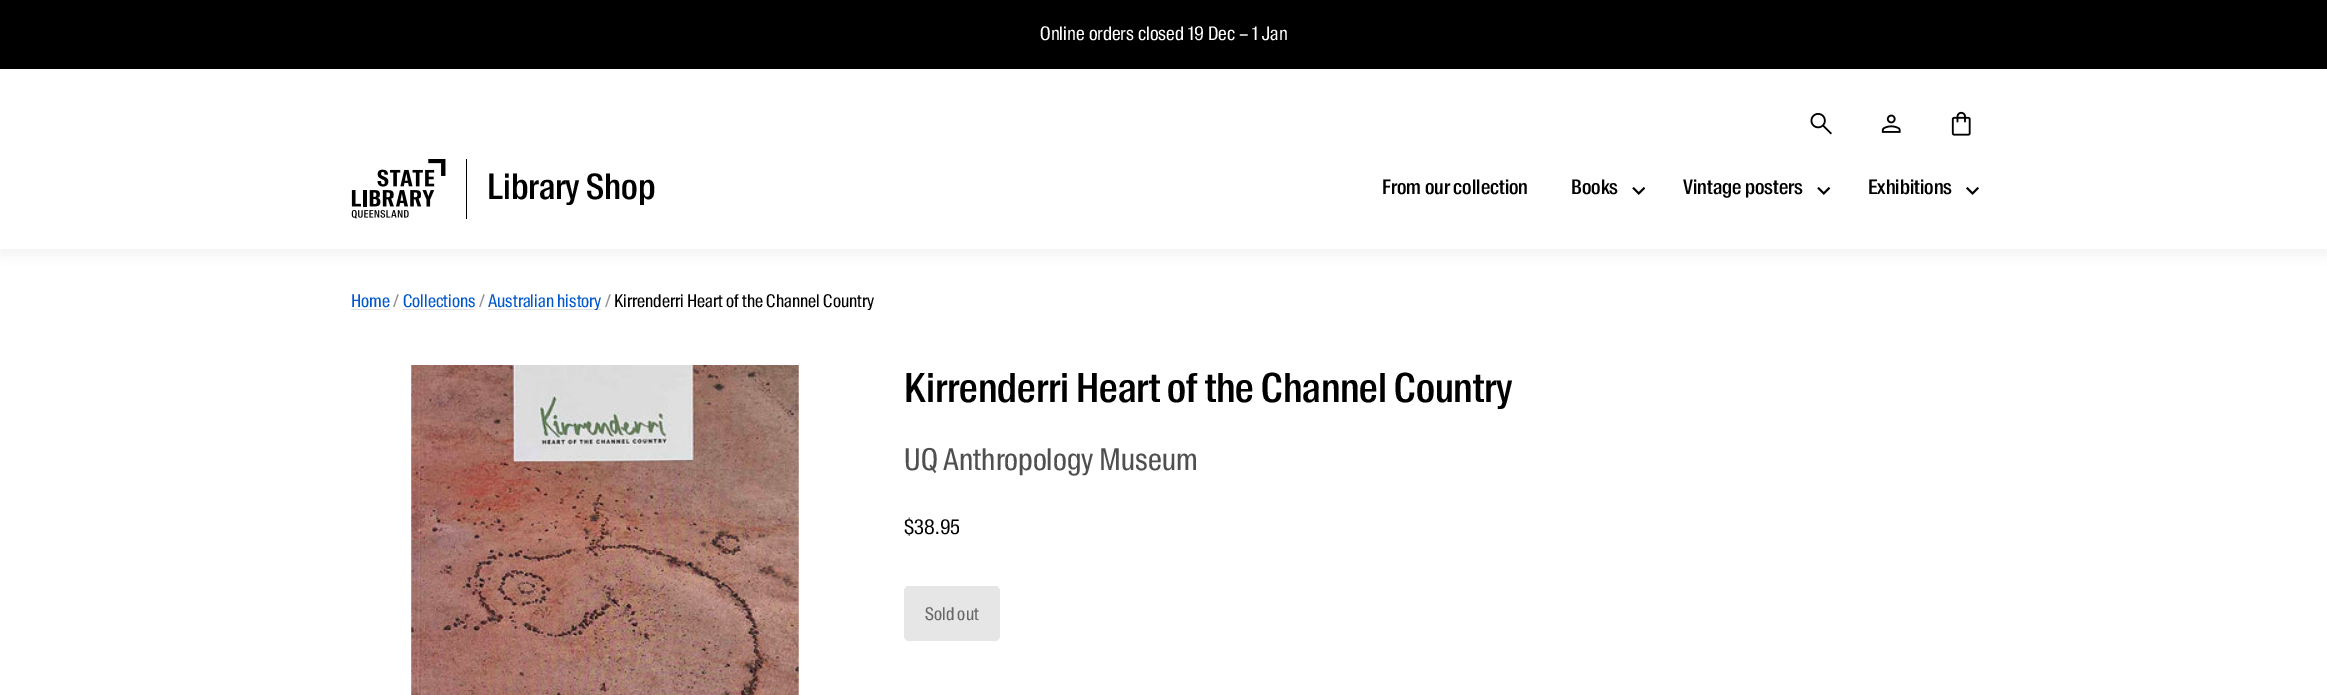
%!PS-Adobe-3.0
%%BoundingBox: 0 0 2327 695
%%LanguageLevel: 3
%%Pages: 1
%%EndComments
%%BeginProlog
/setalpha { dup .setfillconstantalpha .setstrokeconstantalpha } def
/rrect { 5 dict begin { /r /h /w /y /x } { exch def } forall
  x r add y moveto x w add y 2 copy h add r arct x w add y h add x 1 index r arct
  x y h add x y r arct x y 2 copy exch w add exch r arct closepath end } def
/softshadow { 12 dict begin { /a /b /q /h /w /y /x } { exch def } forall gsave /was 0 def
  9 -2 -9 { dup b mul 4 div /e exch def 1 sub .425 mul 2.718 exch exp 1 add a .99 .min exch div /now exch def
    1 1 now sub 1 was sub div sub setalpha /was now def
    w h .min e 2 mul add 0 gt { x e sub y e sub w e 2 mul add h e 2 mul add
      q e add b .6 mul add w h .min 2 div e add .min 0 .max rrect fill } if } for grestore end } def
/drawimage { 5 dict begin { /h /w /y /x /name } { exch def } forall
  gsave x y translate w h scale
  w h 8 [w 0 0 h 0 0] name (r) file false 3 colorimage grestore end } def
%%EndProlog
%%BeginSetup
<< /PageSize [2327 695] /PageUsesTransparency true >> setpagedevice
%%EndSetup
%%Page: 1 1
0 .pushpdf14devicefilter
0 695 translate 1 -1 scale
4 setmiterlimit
1 setgray
0 0 2327 695 rectfill
0 setgray
0 0 2327 69 rectfill
0 74 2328 180 0 7.5 0.05 softshadow
1 setgray
0 69 2327 180 rectfill
(images/1.raw) 1810 113 22 22 drawimage
(images/2.raw) 1881 114 20 19 drawimage
(images/3.raw) 1951 111 20 25 drawimage
(images/4.raw) 351 159 95 60 drawimage
0 setgray
466 159 1 60 rectfill
(images/5.raw) 1632 187 14 8 drawimage
(images/5.raw) 1817 187 14 8 drawimage
(images/6.raw) 1966 187 13 8 drawimage
0.878 setgray
351 309 39 1 rectfill
403 309 72 1 rectfill
488 309 113 1 rectfill
(images/7.raw) 411 365 388 330 drawimage
0.902 setgray
904 586 96 55 5 rrect fill
/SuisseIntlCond-Regular [18.75 0 0 -18.75 0 0] selectfont
1 setgray
1040 40 moveto 0.25 0 32 (Online orders closed 19 Dec – 1 Jan) widthshow
/SuisseIntlCond-Medium [35 0 0 -35 0 0] selectfont
0 setgray
487 199 moveto (Library Shop) show
/SuisseIntlCond-Medium [20 0 0 -20 0 0] selectfont
1382 194 moveto (From our collection) show
1571 194 moveto (Books) show
1683 194 moveto (Vintage posters) show
1868 194 moveto (Exhibitions) show
/SuisseIntlCond-Regular [17.5 0 0 -17.5 0 0] selectfont
0 0.345 0.8 setrgbcolor
351 307 moveto (Home) show
0.58 setgray
393 307 moveto (/) show
0 0.345 0.8 setrgbcolor
403 307 moveto (Collections) show
0.58 setgray
479 307 moveto (/) show
0 0.345 0.8 setrgbcolor
488 307 moveto (Australian history) show
0.58 setgray
605 307 moveto (/) show
0 setgray
614 307 moveto (Kirrenderri Heart of the Channel Country) show
/SuisseIntlCond-Medium [40 0 0 -40 0 0] selectfont
904 402 moveto (Kirrenderri Heart of the Channel Country) show
/SuisseIntlCond-Regular [30 0 0 -30 0 0] selectfont
0.31 setgray
904 470 moveto (UQ Anthropology Museum) show
/SuisseIntlCond-Regular [20 0 0 -20 0 0] selectfont
0 setgray
904 534 moveto ($38.95) show
/SuisseIntlCond-Regular [17.5 0 0 -17.5 0 0] selectfont
0.4 setgray
925 620 moveto (Sold out) show
.poppdf14devicefilter showpage
%%EOF
